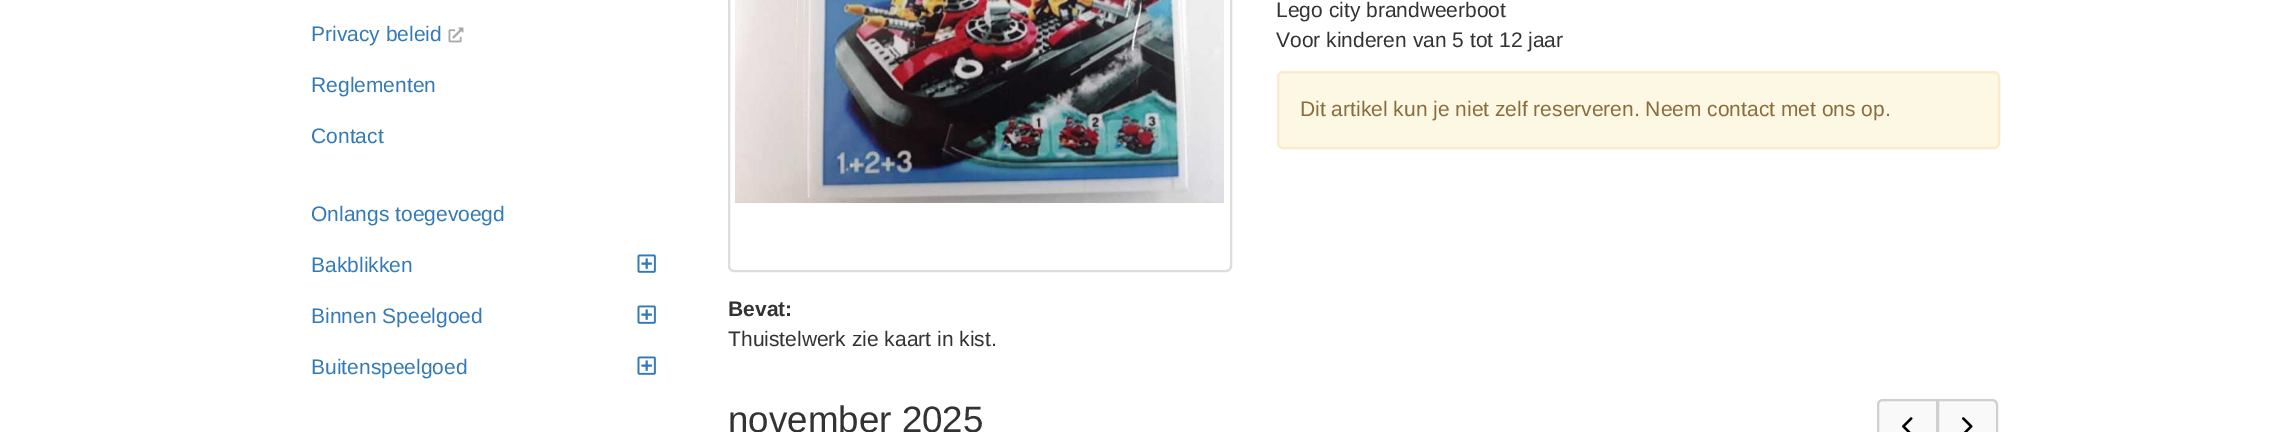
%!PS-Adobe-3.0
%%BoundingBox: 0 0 2287 432
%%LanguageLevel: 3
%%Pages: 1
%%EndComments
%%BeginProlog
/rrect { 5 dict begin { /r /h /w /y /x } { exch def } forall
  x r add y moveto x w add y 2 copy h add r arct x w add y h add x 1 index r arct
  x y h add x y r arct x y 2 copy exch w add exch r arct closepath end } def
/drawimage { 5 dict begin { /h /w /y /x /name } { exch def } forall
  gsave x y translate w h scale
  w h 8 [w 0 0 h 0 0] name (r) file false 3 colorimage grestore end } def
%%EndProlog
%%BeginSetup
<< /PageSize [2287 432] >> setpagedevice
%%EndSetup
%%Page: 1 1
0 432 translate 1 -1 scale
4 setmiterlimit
1 setgray
0 0 2287 432 rectfill
(images/1.raw) 448 27 16 16 drawimage
(images/2.raw) 637 254 19 19 drawimage
(images/2.raw) 637 305 19 19 drawimage
(images/2.raw) 637 356 19 19 drawimage
0.988 0.973 0.89 setrgbcolor
1278 72 721 76 5 rrect gsave fill grestore
0.98 0.922 0.8 setrgbcolor
2 setlinewidth
stroke
0.867 setgray
729 -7 502 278 5 rrect stroke
(images/3.raw) 735 0 489 204 drawimage
0.976 setgray
newpath 1883 400 moveto 1937 400 lineto 1937 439 lineto 1883 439 lineto 1880 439 1878 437 1878 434 curveto 1878 405 lineto 1878 402 1880 400 1883 400 curveto closepath gsave fill grestore
0.808 0.812 0.816 setrgbcolor
stroke
(images/4.raw) 1902 417 11 15 drawimage
0.976 setgray
newpath 1938 400 moveto 1992 400 lineto 1995 400 1997 402 1997 405 curveto 1997 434 lineto 1997 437 1995 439 1992 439 curveto 1938 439 lineto closepath gsave fill grestore
0.808 0.812 0.816 setrgbcolor
stroke
(images/5.raw) 1962 417 11 15 drawimage
/LiberationSans-Regular [21 0 0 -21 0 0] selectfont
0.2 0.478 0.718 setrgbcolor
311 41 moveto (Privacy beleid) show
311 92 moveto (Reglementen) show
311 143 moveto (Contact) show
311 221 moveto (Onlangs toegevoegd) show
311 272 moveto (Bakblikken) show
311 323 moveto (Binnen Speelgoed) show
311 374 moveto (Buitenspeelgoed) show
0.2 setgray
1276 17 moveto (Lego city brandweerboot) show
1276 47 moveto (Voor kinderen van 5 tot 12 jaar) show
0.541 0.427 0.231 setrgbcolor
1300 116 moveto (Dit artikel kun je niet zelf reserveren. Neem contact met ons op.) show
/LiberationSans-Bold [21 0 0 -21 0 0] selectfont
0.2 setgray
728 316 moveto (Bevat:) show
/LiberationSans-Regular [21 0 0 -21 0 0] selectfont
728 346 moveto (Thuistelwerk zie kaart in kist.) show
/LiberationSans-Regular [36.75 0 0 -36.75 0 0] selectfont
728 432 moveto (november 2025) show
showpage
%%EOF
